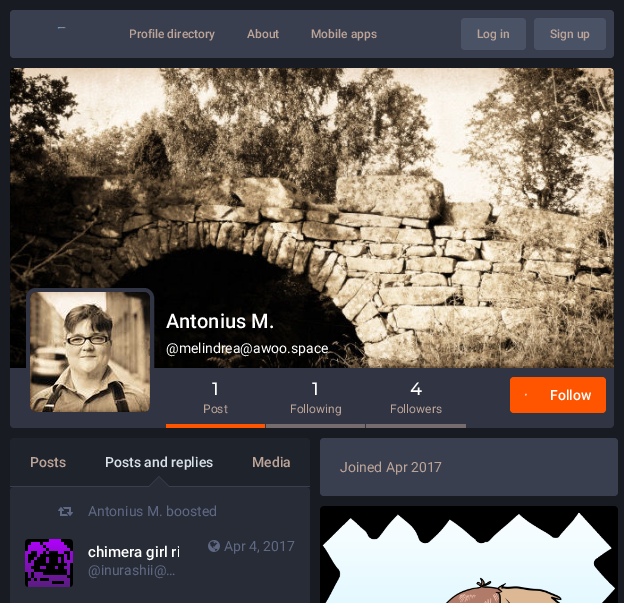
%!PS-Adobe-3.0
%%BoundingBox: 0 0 624 603
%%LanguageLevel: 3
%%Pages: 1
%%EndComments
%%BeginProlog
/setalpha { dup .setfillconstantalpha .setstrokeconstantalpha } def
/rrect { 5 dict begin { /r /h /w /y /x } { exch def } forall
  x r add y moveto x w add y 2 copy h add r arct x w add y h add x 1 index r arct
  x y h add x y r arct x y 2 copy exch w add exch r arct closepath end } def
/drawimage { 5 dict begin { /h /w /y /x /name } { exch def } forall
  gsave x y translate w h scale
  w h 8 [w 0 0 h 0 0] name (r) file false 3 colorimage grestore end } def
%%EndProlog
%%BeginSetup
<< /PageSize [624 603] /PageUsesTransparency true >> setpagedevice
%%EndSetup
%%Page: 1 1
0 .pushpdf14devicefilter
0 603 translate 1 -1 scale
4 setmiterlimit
0.098 0.106 0.133 setrgbcolor
0 0 624 603 rectfill
0.224 0.247 0.31 setrgbcolor
10 10 604 48 4 rrect fill
(images/1.raw) 57 27 9 2 drawimage
0.29 0.322 0.4 setrgbcolor
461 18 65 32 4 rrect fill
534 18 72 32 4 rrect fill
(images/2.raw) 10 68 604 300 drawimage
0.15 setalpha
0 setgray
newpath 613 69 moveto 613 366 lineto 11 366 lineto 11 69 lineto 10 72 lineto 10 368 lineto 614 368 lineto 614 72 lineto closepath fill
1 setalpha
0.192 0.208 0.263 setrgbcolor
newpath 10 368 moveto 614 368 lineto 614 424 lineto 614 426 612 428 610 428 curveto 14 428 lineto 12 428 10 426 10 424 curveto closepath fill
4 setlinewidth
28 290 124 124 8 rrect stroke
(images/3.raw) 30 292 120 120 drawimage
1 0.333 0 setrgbcolor
166 424 99 4 rectfill
0.463 0.424 0.427 setrgbcolor
266 424 99 4 rectfill
366 424 100 4 rectfill
1 0.333 0 setrgbcolor
510 377 96 36 4 rrect fill
(images/4.raw) 525 393 2 3 drawimage
0.122 0.137 0.169 setrgbcolor
newpath 14 438 moveto 306 438 lineto 308 438 310 440 310 442 curveto 310 487 lineto 10 487 lineto 10 442 lineto 10 440 12 438 14 438 curveto closepath fill
0.224 0.247 0.31 setrgbcolor
10 486 300 1 rectfill
newpath 169 486 moveto 149 486 lineto 159 476 lineto closepath fill
0.157 0.173 0.216 setrgbcolor
newpath 169 487 moveto 149 487 lineto 159 477 lineto closepath fill
10 487 300 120 4 rrect fill
(images/5.raw) 58 507 15 9 drawimage
(images/6.raw) 25 539 48 48 drawimage
(images/7.raw) 208 540 12 12 drawimage
0.224 0.247 0.31 setrgbcolor
320 438 298 58 4 rrect fill
0 setgray
newpath 324 506 moveto 614 506 lineto 616 506 618 508 618 510 curveto 618 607 lineto 320 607 lineto 320 510 lineto 320 508 322 506 324 506 curveto closepath fill
(images/8.raw) 322 512 293 91 drawimage
/Roboto-Medium [12 0 0 -12 0 0] selectfont
0.737 0.643 0.596 setrgbcolor
129 38 moveto (Profile directory) show
247 38 moveto (About) show
311 38 moveto (Mobile apps) show
477 38 moveto (Log in) show
550 38 moveto (Sign up) show
/Roboto-Medium [20 0 0 -20 0 0] selectfont
1 setgray
166 328 moveto (Antonius M.) show
/Roboto-Regular [14 0 0 -14 0 0] selectfont
166 353 moveto (@melindrea@awoo.space) show
/Montserrat-Medium [18 0 0 -18 0 0] selectfont
212 395 moveto (1) show
/Roboto-Regular [12 0 0 -12 0 0] selectfont
0.737 0.643 0.596 setrgbcolor
203 413 moveto (Post) show
/Montserrat-Medium [18 0 0 -18 0 0] selectfont
1 setgray
312 395 moveto (1) show
/Roboto-Regular [12 0 0 -12 0 0] selectfont
0.737 0.643 0.596 setrgbcolor
290 413 moveto (Following) show
/Montserrat-Medium [18 0 0 -18 0 0] selectfont
1 setgray
410 395 moveto (4) show
/Roboto-Regular [12 0 0 -12 0 0] selectfont
0.737 0.643 0.596 setrgbcolor
390 413 moveto (Followers) show
/Roboto-Medium [14 0 0 -14 0 0] selectfont
1 setgray
550 400 moveto (Follow) show
0.737 0.643 0.596 setrgbcolor
30 467 moveto (Posts) show
0.851 0.882 0.91 setrgbcolor
105 467 moveto (Posts and replies) show
0.737 0.643 0.596 setrgbcolor
252 467 moveto (Media) show
/Roboto-Regular [14 0 0 -14 0 0] selectfont
0.376 0.412 0.518 setrgbcolor
88 516 moveto (Antonius M. boosted) show
gsave
88 543 91 36 rectclip
/Roboto-Medium [15 0 0 -15 0 0] selectfont
1 setgray
88 557 moveto (chimera girl ri) show
grestore
88 575 moveto (@inurashii@…) show
224 551 moveto (Apr 4, 2017) show
0.737 0.643 0.596 setrgbcolor
340 472 moveto (Joined Apr 2017) show
.poppdf14devicefilter showpage
%%EOF
